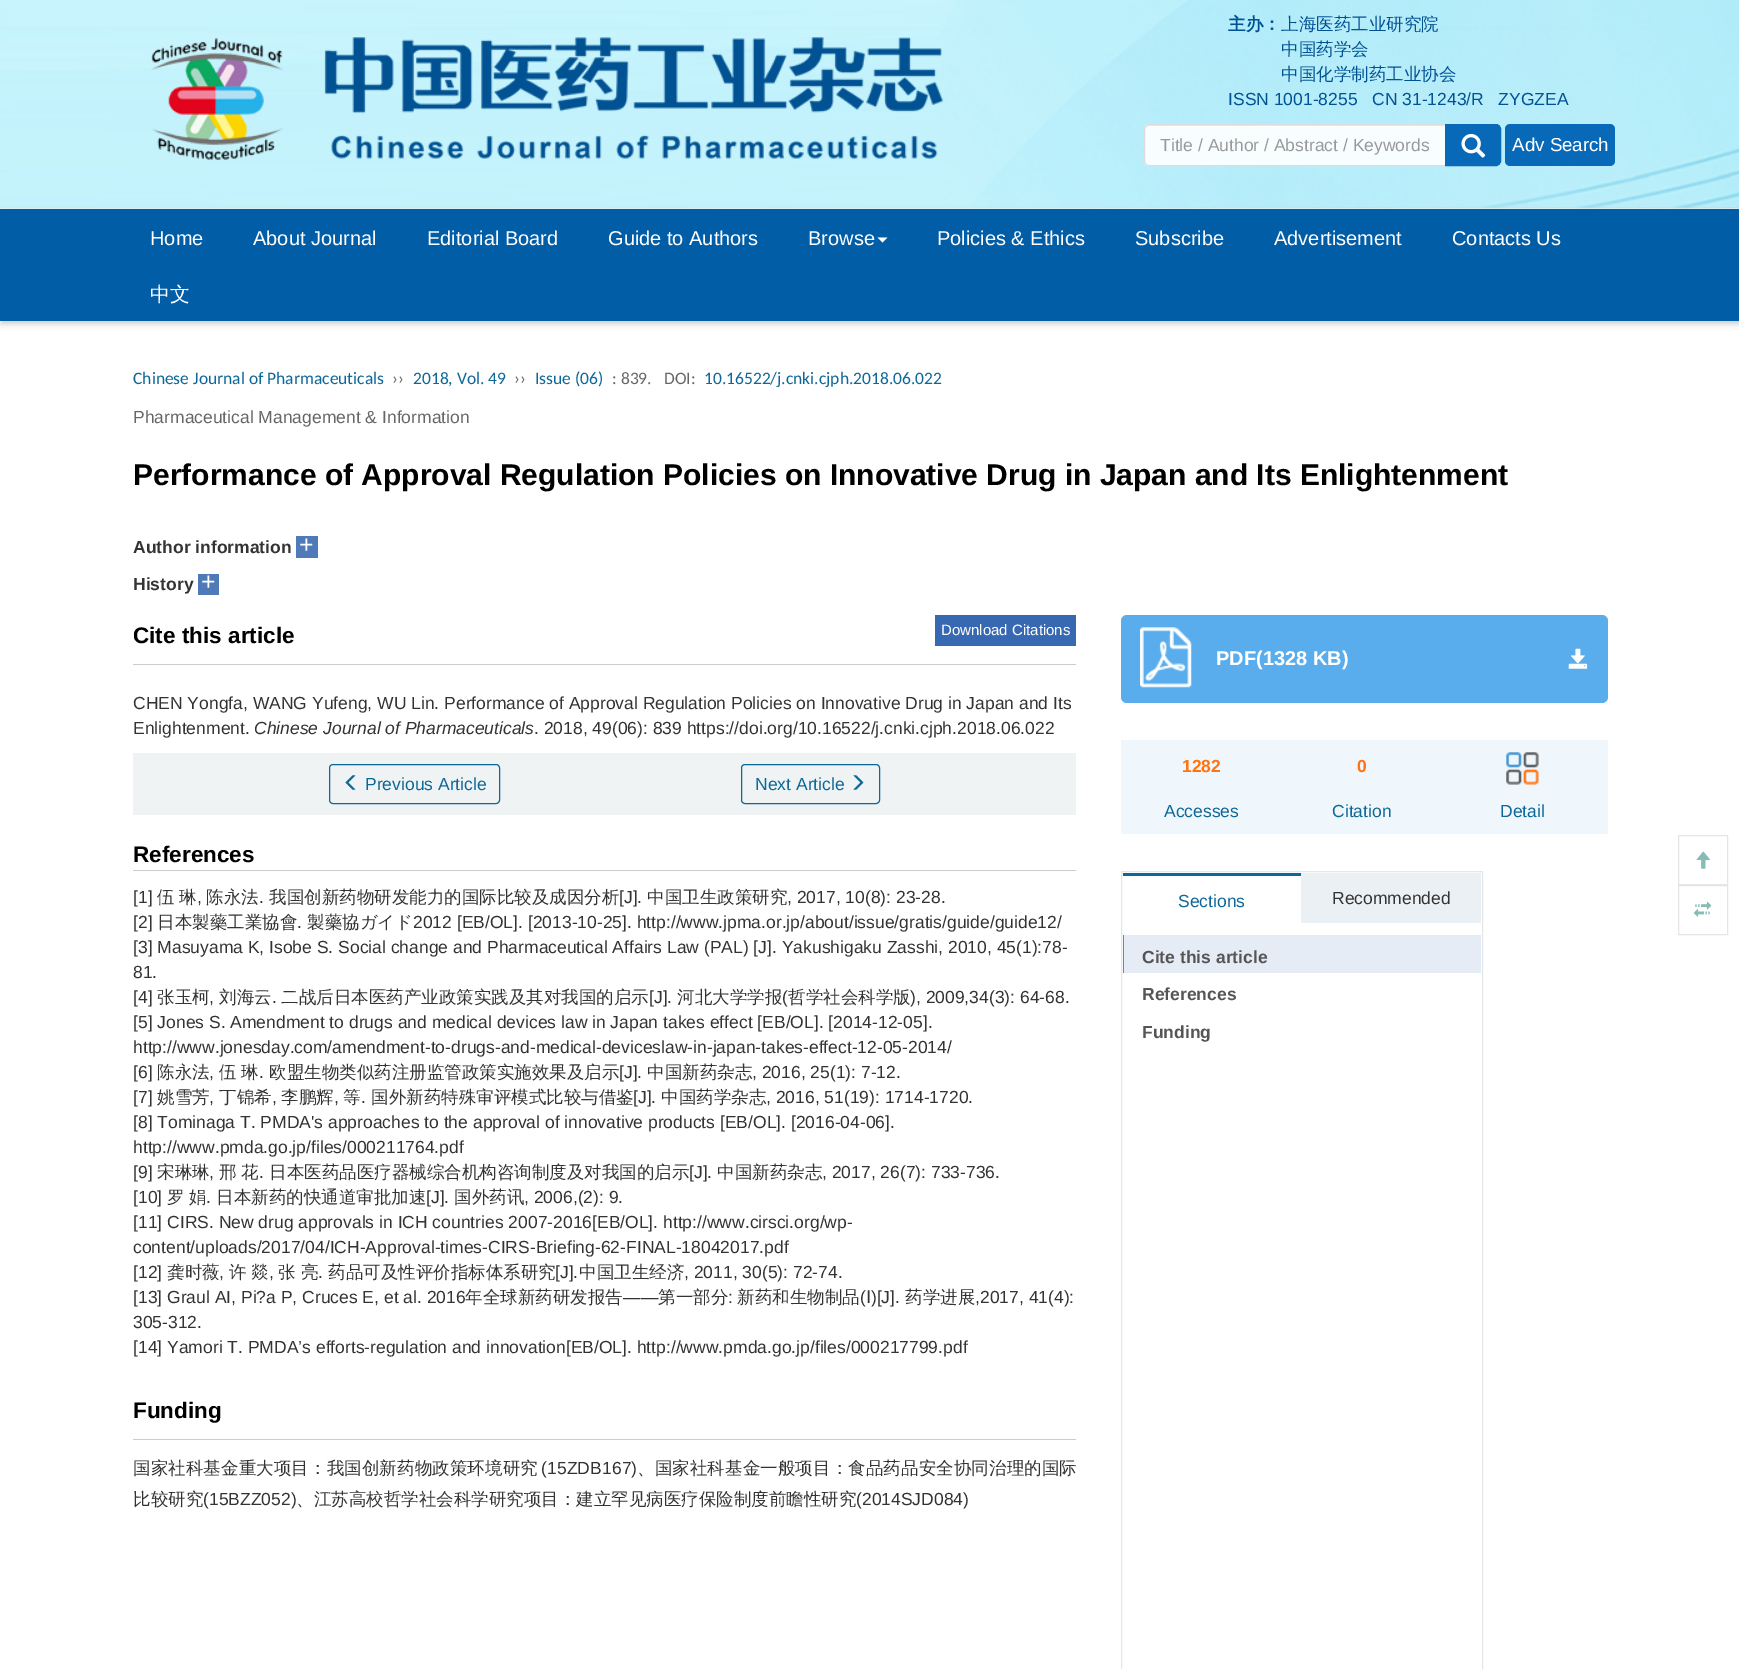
%!PS-Adobe-3.0
%%BoundingBox: 0 0 1739 1669
%%LanguageLevel: 3
%%Pages: 1
%%EndComments
%%BeginProlog
/setalpha { dup .setfillconstantalpha .setstrokeconstantalpha } def
/rrect { 5 dict begin { /r /h /w /y /x } { exch def } forall
  x r add y moveto x w add y 2 copy h add r arct x w add y h add x 1 index r arct
  x y h add x y r arct x y 2 copy exch w add exch r arct closepath end } def
/softshadow { 12 dict begin { /a /b /q /h /w /y /x } { exch def } forall gsave /was 0 def
  9 -2 -9 { dup b mul 4 div /e exch def 1 sub .425 mul 2.718 exch exp 1 add a .99 .min exch div /now exch def
    1 1 now sub 1 was sub div sub setalpha /was now def
    w h .min e 2 mul add 0 gt { x e sub y e sub w e 2 mul add h e 2 mul add
      q e add b .6 mul add w h .min 2 div e add .min 0 .max rrect fill } if } for grestore end } def
/drawimage { 5 dict begin { /h /w /y /x /name } { exch def } forall
  gsave x y translate w h scale
  w h 8 [w 0 0 h 0 0] name (r) file false 3 colorimage grestore end } def
%%EndProlog
%%BeginSetup
<< /PageSize [1739 1669] /PageUsesTransparency true >> setpagedevice
%%EndSetup
%%Page: 1 1
0 .pushpdf14devicefilter
0 1669 translate 1 -1 scale
4 setmiterlimit
1 setgray
0 0 1739 1669 rectfill
(images/1.raw) 0 0 1739 209 drawimage
(images/2.raw) 151 37 792 123 drawimage
0.9 setalpha
newpath 1149 124 moveto 1446 124 lineto 1446 166 lineto 1149 166 lineto 1146 166 1144 164 1144 161 curveto 1144 129 lineto 1144 126 1146 124 1149 124 curveto closepath fill
1 setalpha
0.898 0.918 0.922 setrgbcolor
newpath 1149 126 moveto 1445 126 lineto 1445 125 lineto 1149 125 lineto 1147 125 1145 127 1145 129 curveto 1145 130 lineto 1145 128 1147 126 1149 126 curveto closepath fill
0.867 setgray
newpath 1149 124.5 moveto 1445.5 124.5 lineto 1445.5 165.5 lineto 1149 165.5 lineto 1146.5 165.5 1144.5 163.5 1144.5 161 curveto 1144.5 129 lineto 1144.5 126.5 1146.5 124.5 1149 124.5 curveto closepath stroke
0.027 0.412 0.718 setrgbcolor
newpath 1445.5 124.5 moveto 1496 124.5 lineto 1498.5 124.5 1500.5 126.5 1500.5 129 curveto 1500.5 161 lineto 1500.5 163.5 1498.5 165.5 1496 165.5 curveto 1445.5 165.5 lineto closepath gsave fill grestore
stroke
(images/3.raw) 1461 133 25 25 drawimage
1505 124 110 42 5 rrect fill
0.8 setgray
1 211 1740 113 0 3 1 softshadow
0.008 0.365 0.655 setrgbcolor
0 209 1739 112 rectfill
1 setgray
newpath 877.5 237.5 moveto 887.5 237.5 lineto 882.5 242.5 lineto closepath fill
0.314 0.475 0.718 setrgbcolor
296 536 22 22 rectfill
198 574 21 21 rectfill
0.8 setgray
133 664 943 1 rectfill
0.216 0.412 0.702 setrgbcolor
935 615 141 31 rectfill
0.941 0.953 0.957 setrgbcolor
133 753 943 62 rectfill
0.051 0.404 0.592 setrgbcolor
329.5 764.5 170 39 3.5 rrect stroke
(images/4.raw) 345 775 11 15 drawimage
741.5 764.5 138 39 3.5 rrect stroke
(images/5.raw) 853 775 11 15 drawimage
0.8 setgray
133 870 943 1 rectfill
133 1439 943 1 rectfill
0.353 0.678 0.925 setrgbcolor
1121 615 487 88 6 rrect fill
(images/6.raw) 1140 627 52 61 drawimage
(images/7.raw) 1568 648 20 21 drawimage
0.941 0.969 0.988 setrgbcolor
1121 740 487 94 rectfill
(images/8.raw) 1506 752 33 33 drawimage
0.894 0.906 0.914 setrgbcolor
1121.5 871.5 361 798 rectstroke
0.922 0.941 0.957 setrgbcolor
1301 873 180 50 rectfill
0.051 0.404 0.592 setrgbcolor
1123 873 178 3 rectfill
0.902 0.925 0.961 setrgbcolor
1124 935 357 38 rectfill
0.384 0.529 0.745 setrgbcolor
1123 935 1 38 rectfill
0.886 0.902 0.91 setrgbcolor
1678.5 835.5 49 49 rectstroke
(images/9.raw) 1696 851 14 18 drawimage
1678.5 885.5 49 49 rectstroke
(images/10.raw) 1693 901 19 16 drawimage
/WenQuanYiZenHei-Bold [17.5 0 0 -17.5 0 0] selectfont
0.004 0.322 0.576 setrgbcolor
1228 30 moveto (主办：) show
/WenQuanYiZenHei-Medium [17.5 0 0 -17.5 0 0] selectfont
1281 30 moveto (上海医药工业研究院) show
1281 55 moveto (中国药学会) show
1281 80 moveto (中国化学制药工业协会) show
/LiberationSans-Regular [17.5 0 0 -17.5 0 0] selectfont
1228 105 moveto (ISSN 1001-8255   CN 31-1243/R   ZYGZEA) show
0.6 setgray
1160 151 moveto (Title / Author / Abstract / Keywords) show
/LiberationSans-Regular [18.75 0 0 -18.75 0 0] selectfont
1 setgray
1512 151 moveto (Adv Search) show
/LiberationSans-Regular [20 0 0 -20 0 0] selectfont
150 245 moveto (Home) show
253 245 moveto (About Journal) show
427 245 moveto (Editorial Board) show
608 245 moveto (Guide to Authors) show
808 245 moveto (Browse) show
937 245 moveto (Policies & Ethics) show
1135 245 moveto (Subscribe) show
1274 245 moveto (Advertisement) show
1452 245 moveto (Contacts Us) show
/WenQuanYiZenHei-Medium [20 0 0 -20 0 0] selectfont
150 301 moveto (中文) show
/Carlito-Regular [17.5 0 0 -17.5 0 0] selectfont
0.051 0.404 0.592 setrgbcolor
133 384 moveto (Chinese Journal of Pharmaceuticals) show
0.4 setgray
392 384 moveto (››) show
0.051 0.404 0.592 setrgbcolor
413 384 moveto (2018, Vol. 49) show
0.4 setgray
514 384 moveto (››) show
0.051 0.404 0.592 setrgbcolor
535 384 moveto (Issue \(06\)) show
0.4 setgray
612 384 moveto (: 839.) show
664 384 moveto (DOI:) show
0.051 0.404 0.592 setrgbcolor
704 384 moveto (10.16522/j.cnki.cjph.2018.06.022) show
/LiberationSans-Regular [17.5 0 0 -17.5 0 0] selectfont
0.4 setgray
133 423 moveto (Pharmaceutical Management & Information) show
/LiberationSans-Bold [30 0 0 -30 0 0] selectfont
0 setgray
133 485 moveto (Performance of Approval Regulation Policies on Innovative Drug in Japan and Its Enlightenment) show
/LiberationSans-Bold [17.5 0 0 -17.5 0 0] selectfont
0.2 setgray
133 553 moveto (Author information) show
/LiberationSans-Regular [25 0 0 -25 0 0] selectfont
1 setgray
299 553 moveto (+) show
/LiberationSans-Bold [17.5 0 0 -17.5 0 0] selectfont
0.2 setgray
133 590 moveto (History) show
/LiberationSans-Regular [25 0 0 -25 0 0] selectfont
1 setgray
201 590 moveto (+) show
/LiberationSans-Bold [22.5 0 0 -22.5 0 0] selectfont
0 setgray
133 643 moveto (Cite this article) show
/LiberationSans-Regular [15 0 0 -15 0 0] selectfont
1 setgray
941 635 moveto (Download Citations) show
/LiberationSans-Regular [17.5 0 0 -17.5 0 0] selectfont
0.2 setgray
133 709 moveto (CHEN Yongfa, WANG Yufeng, WU Lin. Performance of Approval Regulation Policies on Innovative Drug in Japan and Its) show
133 734 moveto (Enlightenment.) show
/LiberationSans-Italic [17.5 0 0 -17.5 0 0] selectfont
254 734 moveto (Chinese Journal of Pharmaceuticals) show
/LiberationSans-Regular [17.5 0 0 -17.5 0 0] selectfont
534 734 moveto (. 2018, 49\(06\): 839 https://doi.org/10.16522/j.cnki.cjph.2018.06.022) show
0.051 0.404 0.592 setrgbcolor
365 790 moveto (Previous Article) show
755 790 moveto (Next Article) show
/LiberationSans-Bold [22.5 0 0 -22.5 0 0] selectfont
0 setgray
133 862 moveto (References) show
/LiberationSans-Regular [17.5 0 0 -17.5 0 0] selectfont
0.2 setgray
133 903 moveto ([1]) show
/WenQuanYiZenHei-Medium [17.5 0 0 -17.5 0 0] selectfont
157 903 moveto (伍) show
179 903 moveto (琳) show
/LiberationSans-Regular [17.5 0 0 -17.5 0 0] selectfont
197 903 moveto (,) show
/WenQuanYiZenHei-Medium [17.5 0 0 -17.5 0 0] selectfont
206 903 moveto (陈永法) show
/LiberationSans-Regular [17.5 0 0 -17.5 0 0] selectfont
259 903 moveto (.) show
/WenQuanYiZenHei-Medium [17.5 0 0 -17.5 0 0] selectfont
269 903 moveto (我国创新药物研发能力的国际比较及成因分析) show
/LiberationSans-Regular [17.5 0 0 -17.5 0 0] selectfont
619 903 moveto ([J].) show
/WenQuanYiZenHei-Medium [17.5 0 0 -17.5 0 0] selectfont
647 903 moveto (中国卫生政策研究) show
/LiberationSans-Regular [17.5 0 0 -17.5 0 0] selectfont
787 903 moveto (, 2017, 10\(8\): 23-28.) show
133 928 moveto ([2]) show
/WenQuanYiZenHei-Medium [17.5 0 0 -17.5 0 0] selectfont
157 928 moveto (日本製藥工業協會) show
/LiberationSans-Regular [17.5 0 0 -17.5 0 0] selectfont
297 928 moveto (.) show
/WenQuanYiZenHei-Medium [17.5 0 0 -17.5 0 0] selectfont
307 928 moveto (製藥協ガイド) show
/LiberationSans-Regular [17.5 0 0 -17.5 0 0] selectfont
413 928 moveto (2012 [EB/OL]. [2013-10-25]. http://www.jpma.or.jp/about/issue/gratis/guide/guide12/) show
133 953 moveto ([3] Masuyama K, Isobe S. Social change and Pharmaceutical Affairs Law \(PAL\) [J]. Yakushigaku Zasshi, 2010, 45\(1\):78-) show
133 978 moveto (81.) show
133 1003 moveto ([4]) show
/WenQuanYiZenHei-Medium [17.5 0 0 -17.5 0 0] selectfont
157 1003 moveto (张玉柯) show
/LiberationSans-Regular [17.5 0 0 -17.5 0 0] selectfont
209 1003 moveto (,) show
/WenQuanYiZenHei-Medium [17.5 0 0 -17.5 0 0] selectfont
219 1003 moveto (刘海云) show
/LiberationSans-Regular [17.5 0 0 -17.5 0 0] selectfont
272 1003 moveto (.) show
/WenQuanYiZenHei-Medium [17.5 0 0 -17.5 0 0] selectfont
281 1003 moveto (二战后日本医药产业政策实践及其对我国的启示) show
/LiberationSans-Regular [17.5 0 0 -17.5 0 0] selectfont
649 1003 moveto ([J].) show
/WenQuanYiZenHei-Medium [17.5 0 0 -17.5 0 0] selectfont
677 1003 moveto (河北大学学报) show
/LiberationSans-Regular [17.5 0 0 -17.5 0 0] selectfont
782 1003 moveto (\() show
/WenQuanYiZenHei-Medium [17.5 0 0 -17.5 0 0] selectfont
788 1003 moveto (哲学社会科学版) show
/LiberationSans-Regular [17.5 0 0 -17.5 0 0] selectfont
910 1003 moveto (\), 2009,34\(3\): 64-68.) show
133 1028 moveto ([5] Jones S. Amendment to drugs and medical devices law in Japan takes effect [EB/OL]. [2014-12-05].) show
133 1053 moveto (http://www.jonesday.com/amendment-to-drugs-and-medical-deviceslaw-in-japan-takes-effect-12-05-2014/) show
133 1078 moveto ([6]) show
/WenQuanYiZenHei-Medium [17.5 0 0 -17.5 0 0] selectfont
157 1078 moveto (陈永法) show
/LiberationSans-Regular [17.5 0 0 -17.5 0 0] selectfont
209 1078 moveto (,) show
/WenQuanYiZenHei-Medium [17.5 0 0 -17.5 0 0] selectfont
219 1078 moveto (伍) show
241 1078 moveto (琳) show
/LiberationSans-Regular [17.5 0 0 -17.5 0 0] selectfont
259 1078 moveto (.) show
/WenQuanYiZenHei-Medium [17.5 0 0 -17.5 0 0] selectfont
269 1078 moveto (欧盟生物类似药注册监管政策实施效果及启示) show
/LiberationSans-Regular [17.5 0 0 -17.5 0 0] selectfont
619 1078 moveto ([J].) show
/WenQuanYiZenHei-Medium [17.5 0 0 -17.5 0 0] selectfont
647 1078 moveto (中国新药杂志) show
/LiberationSans-Regular [17.5 0 0 -17.5 0 0] selectfont
752 1078 moveto (, 2016, 25\(1\): 7-12.) show
133 1103 moveto ([7]) show
/WenQuanYiZenHei-Medium [17.5 0 0 -17.5 0 0] selectfont
157 1103 moveto (姚雪芳) show
/LiberationSans-Regular [17.5 0 0 -17.5 0 0] selectfont
209 1103 moveto (,) show
/WenQuanYiZenHei-Medium [17.5 0 0 -17.5 0 0] selectfont
219 1103 moveto (丁锦希) show
/LiberationSans-Regular [17.5 0 0 -17.5 0 0] selectfont
272 1103 moveto (,) show
/WenQuanYiZenHei-Medium [17.5 0 0 -17.5 0 0] selectfont
281 1103 moveto (李鹏辉) show
/LiberationSans-Regular [17.5 0 0 -17.5 0 0] selectfont
334 1103 moveto (,) show
/WenQuanYiZenHei-Medium [17.5 0 0 -17.5 0 0] selectfont
343 1103 moveto (等) show
/LiberationSans-Regular [17.5 0 0 -17.5 0 0] selectfont
361 1103 moveto (.) show
/WenQuanYiZenHei-Medium [17.5 0 0 -17.5 0 0] selectfont
371 1103 moveto (国外新药特殊审评模式比较与借鉴) show
/LiberationSans-Regular [17.5 0 0 -17.5 0 0] selectfont
633 1103 moveto ([J].) show
/WenQuanYiZenHei-Medium [17.5 0 0 -17.5 0 0] selectfont
661 1103 moveto (中国药学杂志) show
/LiberationSans-Regular [17.5 0 0 -17.5 0 0] selectfont
766 1103 moveto (, 2016, 51\(19\): 1714-1720.) show
133 1128 moveto ([8] Tominaga T. PMDA's approaches to the approval of innovative products [EB/OL]. [2016-04-06].) show
133 1153 moveto (http://www.pmda.go.jp/files/000211764.pdf) show
133 1178 moveto ([9]) show
/WenQuanYiZenHei-Medium [17.5 0 0 -17.5 0 0] selectfont
157 1178 moveto (宋琳琳) show
/LiberationSans-Regular [17.5 0 0 -17.5 0 0] selectfont
209 1178 moveto (,) show
/WenQuanYiZenHei-Medium [17.5 0 0 -17.5 0 0] selectfont
219 1178 moveto (邢) show
241 1178 moveto (花) show
/LiberationSans-Regular [17.5 0 0 -17.5 0 0] selectfont
259 1178 moveto (.) show
/WenQuanYiZenHei-Medium [17.5 0 0 -17.5 0 0] selectfont
269 1178 moveto (日本医药品医疗器械综合机构咨询制度及对我国的启示) show
/LiberationSans-Regular [17.5 0 0 -17.5 0 0] selectfont
689 1178 moveto ([J].) show
/WenQuanYiZenHei-Medium [17.5 0 0 -17.5 0 0] selectfont
717 1178 moveto (中国新药杂志) show
/LiberationSans-Regular [17.5 0 0 -17.5 0 0] selectfont
822 1178 moveto (, 2017, 26\(7\): 733-736.) show
133 1203 moveto ([10]) show
/WenQuanYiZenHei-Medium [17.5 0 0 -17.5 0 0] selectfont
167 1203 moveto (罗) show
189 1203 moveto (娟) show
/LiberationSans-Regular [17.5 0 0 -17.5 0 0] selectfont
206 1203 moveto (.) show
/WenQuanYiZenHei-Medium [17.5 0 0 -17.5 0 0] selectfont
216 1203 moveto (日本新药的快通道审批加速) show
/LiberationSans-Regular [17.5 0 0 -17.5 0 0] selectfont
426 1203 moveto ([J].) show
/WenQuanYiZenHei-Medium [17.5 0 0 -17.5 0 0] selectfont
454 1203 moveto (国外药讯) show
/LiberationSans-Regular [17.5 0 0 -17.5 0 0] selectfont
524 1203 moveto (, 2006,\(2\): 9.) show
133 1228 moveto ([11] CIRS. New drug approvals in ICH countries 2007-2016[EB/OL]. http://www.cirsci.org/wp-) show
133 1253 moveto (content/uploads/2017/04/ICH-Approval-times-CIRS-Briefing-62-FINAL-18042017.pdf) show
133 1278 moveto ([12]) show
/WenQuanYiZenHei-Medium [17.5 0 0 -17.5 0 0] selectfont
167 1278 moveto (龚时薇) show
/LiberationSans-Regular [17.5 0 0 -17.5 0 0] selectfont
219 1278 moveto (,) show
/WenQuanYiZenHei-Medium [17.5 0 0 -17.5 0 0] selectfont
229 1278 moveto (许) show
251 1278 moveto (燚) show
/LiberationSans-Regular [17.5 0 0 -17.5 0 0] selectfont
269 1278 moveto (,) show
/WenQuanYiZenHei-Medium [17.5 0 0 -17.5 0 0] selectfont
278 1278 moveto (张) show
301 1278 moveto (亮) show
/LiberationSans-Regular [17.5 0 0 -17.5 0 0] selectfont
318 1278 moveto (.) show
/WenQuanYiZenHei-Medium [17.5 0 0 -17.5 0 0] selectfont
328 1278 moveto (药品可及性评价指标体系研究) show
/LiberationSans-Regular [17.5 0 0 -17.5 0 0] selectfont
555 1278 moveto ([J].) show
/WenQuanYiZenHei-Medium [17.5 0 0 -17.5 0 0] selectfont
579 1278 moveto (中国卫生经济) show
/LiberationSans-Regular [17.5 0 0 -17.5 0 0] selectfont
684 1278 moveto (, 2011, 30\(5\): 72-74.) show
133 1303 moveto ([13] Graul AI, Pi?a P, Cruces E, et al. 2016) show
/WenQuanYiZenHei-Medium [17.5 0 0 -17.5 0 0] selectfont
465 1303 moveto (年全球新药研发报告) show
658 1303 moveto (第一部分) show
737 1303 moveto (新药和生物制品) show
/LiberationSans-Regular [17.5 0 0 -17.5 0 0] selectfont
860 1303 moveto (\( \)[J].) show
/WenQuanYiZenHei-Medium [17.5 0 0 -17.5 0 0] selectfont
905 1303 moveto (药学进展) show
/LiberationSans-Regular [17.5 0 0 -17.5 0 0] selectfont
623 1303 moveto (——) show
728 1303 moveto (:) show
/DejaVuSans-Regular [17.5 0 0 -17.5 0 0] selectfont
866 1303 moveto (Ⅰ) show
/LiberationSans-Regular [17.5 0 0 -17.5 0 0] selectfont
975 1303 moveto (,2017, 41\(4\):) show
133 1328 moveto (305-312.) show
133 1353 moveto ([14] Yamori T. PMDA’s efforts-regulation and innovation[EB/OL]. http://www.pmda.go.jp/files/000217799.pdf) show
/LiberationSans-Bold [22.5 0 0 -22.5 0 0] selectfont
0 setgray
133 1418 moveto (Funding) show
/WenQuanYiZenHei-Medium [17.5 0 0 -17.5 0 0] selectfont
0.2 setgray
133 1474 moveto 0.1 0 (国家社科基金重大项目：我国创新药物政策环境研究) ashow
/LiberationSans-Regular [17.5 0 0 -17.5 0 0] selectfont
541 1474 moveto 0.1 0 (\(15ZDB167\)) ashow
/WenQuanYiZenHei-Medium [17.5 0 0 -17.5 0 0] selectfont
637 1474 moveto 0.1 0 (、国家社科基金一般项目：食品药品安全协同治理的国际) ashow
133 1505 moveto (比较研究) show
/LiberationSans-Regular [17.5 0 0 -17.5 0 0] selectfont
203 1505 moveto (\(15BZZ052\)) show
/WenQuanYiZenHei-Medium [17.5 0 0 -17.5 0 0] selectfont
296 1505 moveto (、江苏高校哲学社会科学研究项目：建立罕见病医疗保险制度前瞻性研究) show
/LiberationSans-Regular [17.5 0 0 -17.5 0 0] selectfont
856 1505 moveto (\(2014SJD084\)) show
/LiberationSans-Bold [20 0 0 -20 0 0] selectfont
1 setgray
1216 665 moveto (PDF\(1328 KB\)) show
/LiberationSans-Bold [17.5 0 0 -17.5 0 0] selectfont
1 0.451 0.071 setrgbcolor
1182 772 moveto (1282) show
/LiberationSans-Regular [17.5 0 0 -17.5 0 0] selectfont
0.051 0.404 0.592 setrgbcolor
1164 817 moveto (Accesses) show
/LiberationSans-Bold [17.5 0 0 -17.5 0 0] selectfont
1 0.451 0.071 setrgbcolor
1357 772 moveto (0) show
/LiberationSans-Regular [17.5 0 0 -17.5 0 0] selectfont
0.051 0.404 0.592 setrgbcolor
1332 817 moveto (Citation) show
1500 817 moveto (Detail) show
1178 907 moveto (Sections) show
0.2 setgray
1332 904 moveto (Recommended) show
/LiberationSans-Bold [17.5 0 0 -17.5 0 0] selectfont
0.333 setgray
1142 963 moveto (Cite this article) show
1142 1000 moveto (References) show
1142 1038 moveto (Funding) show
.poppdf14devicefilter showpage
%%EOF
